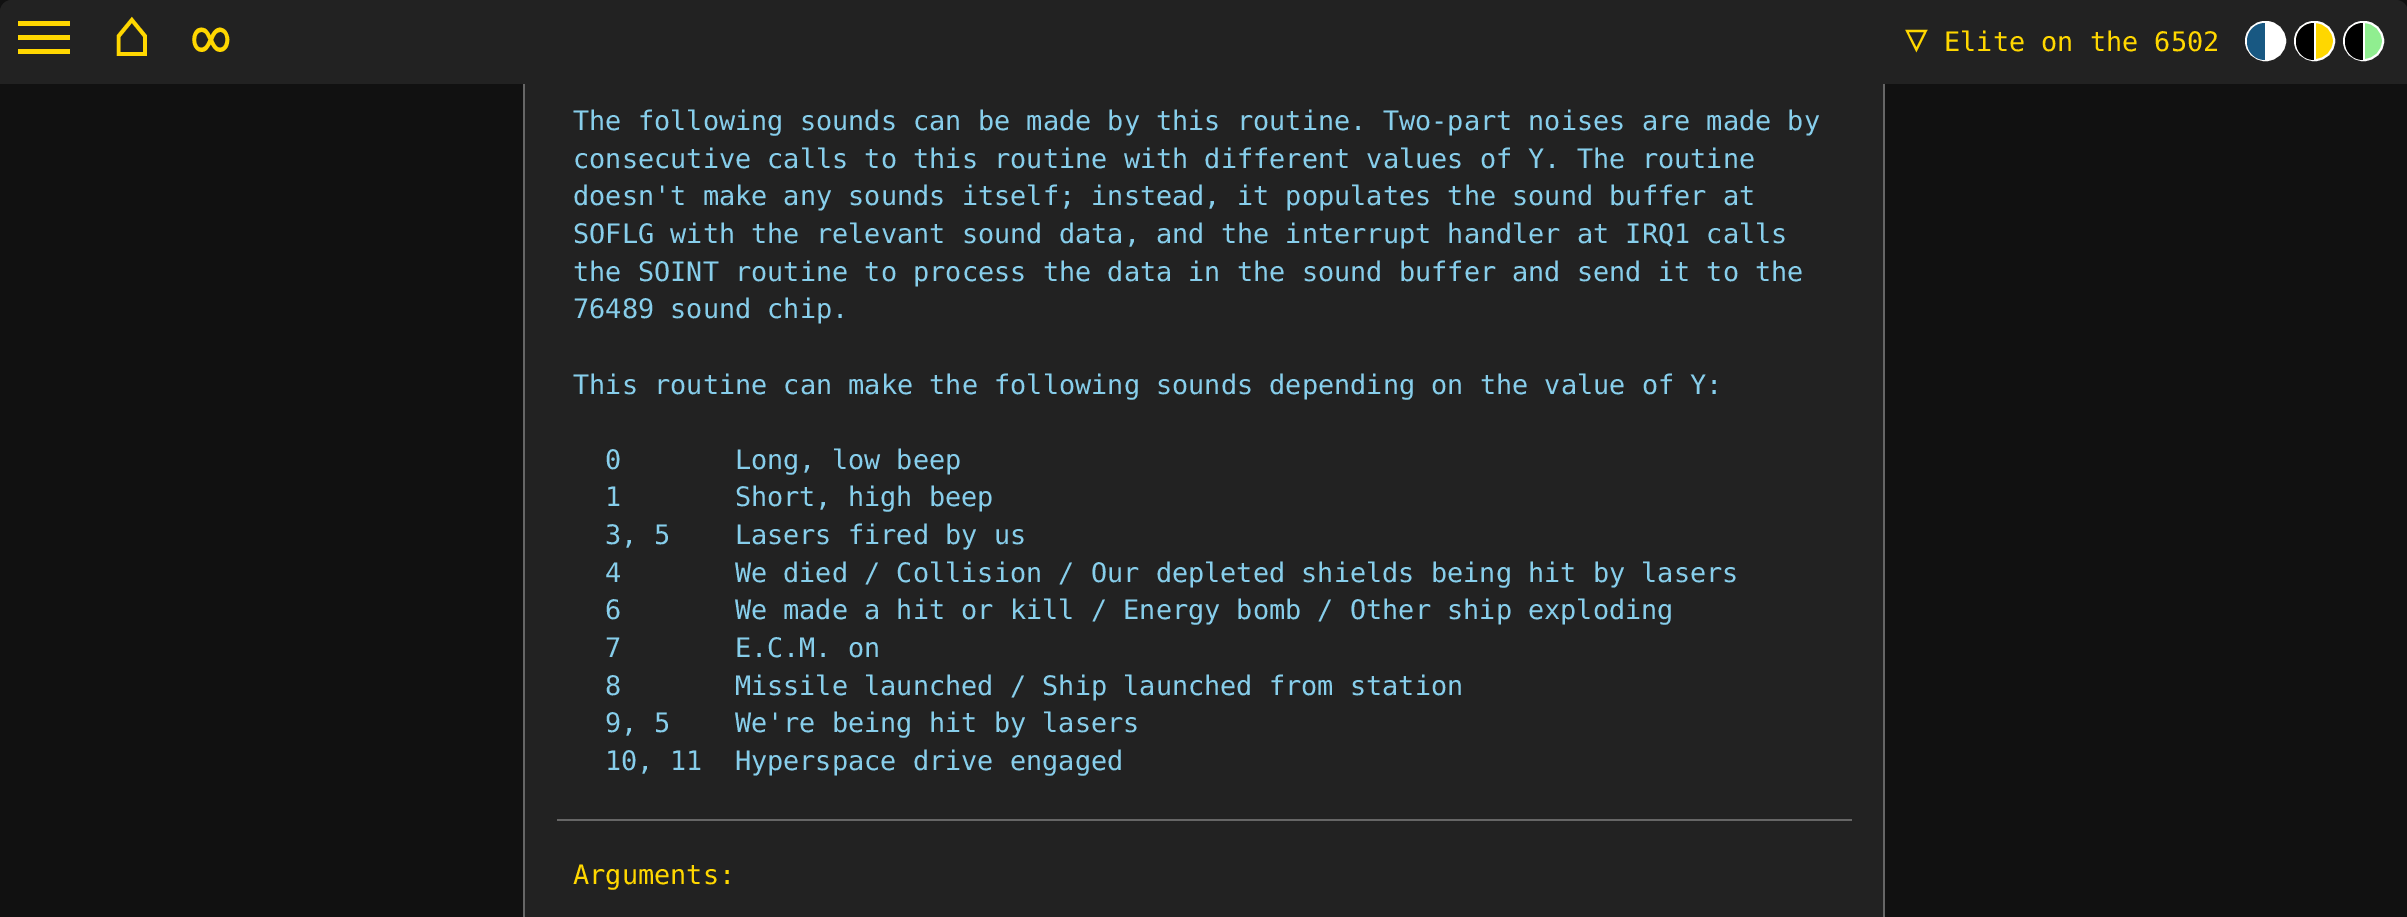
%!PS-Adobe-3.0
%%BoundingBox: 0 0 2407 917
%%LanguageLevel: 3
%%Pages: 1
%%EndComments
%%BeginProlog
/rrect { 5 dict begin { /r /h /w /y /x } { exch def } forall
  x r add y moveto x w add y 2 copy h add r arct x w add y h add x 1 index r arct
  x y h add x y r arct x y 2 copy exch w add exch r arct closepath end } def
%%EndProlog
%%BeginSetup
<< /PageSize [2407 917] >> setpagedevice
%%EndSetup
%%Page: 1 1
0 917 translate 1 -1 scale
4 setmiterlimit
0.067 setgray
0 0 2407 917 rectfill
0.133 setgray
newpath 12 0 moveto 2396 0 lineto 2402.5 0 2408 5.5 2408 12 curveto 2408 84 lineto 0 84 lineto 0 12 lineto 0 5.5 5.5 0 12 0 curveto closepath fill
newpath 12 0 moveto 88 0 lineto 88 75 lineto 0 75 lineto 0 12 lineto 0 5.5 5.5 0 12 0 curveto closepath fill
1 0.843 0 setrgbcolor
18 21 52 5 rectfill
18 35 52 5 rectfill
18 49 52 5 rectfill
1 setgray
2246 22 39 38 19 rrect gsave fill grestore
2 setlinewidth
stroke
0.094 0.345 0.51 setrgbcolor
newpath 2265 23 moveto 2266 23 lineto 2266 60 lineto 2265 60 lineto 2255 60 2247 52 2247 42 curveto 2247 41 lineto 2247 31 2255 23 2265 23 curveto closepath fill
1 setgray
2265 23 1 37 rectfill
1 0.843 0 setrgbcolor
2295 22 39 38 19 rrect gsave fill grestore
1 setgray
stroke
0 setgray
newpath 2314 23 moveto 2315 23 lineto 2315 60 lineto 2314 60 lineto 2304 60 2296 52 2296 42 curveto 2296 41 lineto 2296 31 2304 23 2314 23 curveto closepath fill
1 setgray
2314 23 2 37 rectfill
0.565 0.933 0.565 setrgbcolor
2344 22 39 38 19 rrect gsave fill grestore
1 setgray
stroke
0 setgray
newpath 2363 23 moveto 2364 23 lineto 2364 60 lineto 2363 60 lineto 2353 60 2345 52 2345 42 curveto 2345 41 lineto 2345 31 2353 23 2363 23 curveto closepath fill
1 setgray
2363 23 2 37 rectfill
0.4 setgray
1883 84 2 833 rectfill
523 84 2 833 rectfill
0.133 setgray
525 84 1358 833 rectfill
0.4 setgray
557 819 1295 2 rectfill
/DejaVuSansMono-Regular [66 0 0 -66 0 0] selectfont
1 0.843 0 setrgbcolor
112 56 moveto (⌂) show
191 60 moveto (∞) show
/DejaVuSansMono-Regular [38 0 0 -38 0 0] selectfont
1905 51 moveto (▽) show
/DejaVuSansMono-Regular [26.9 0 0 -26.9 0 0] selectfont
1944 51 moveto (Elite on the 6502) show
0.529 0.808 0.922 setrgbcolor
573 130 moveto (The following sounds can be made by this routine. Two-part noises are made by) show
573 168 moveto (consecutive calls to this routine with different values of Y. The routine) show
573 205 moveto (doesn't make any sounds itself; instead, it populates the sound buffer at) show
573 243 moveto (SOFLG with the relevant sound data, and the interrupt handler at IRQ1 calls) show
573 281 moveto (the SOINT routine to process the data in the sound buffer and send it to the) show
573 318 moveto (76489 sound chip.) show
573 394 moveto (This routine can make the following sounds depending on the value of Y:) show
605 469 moveto (0       Long, low beep) show
605 506 moveto (1       Short, high beep) show
605 544 moveto (3, 5    Lasers fired by us) show
605 582 moveto (4       We died / Collision / Our depleted shields being hit by lasers) show
605 619 moveto (6       We made a hit or kill / Energy bomb / Other ship exploding) show
605 657 moveto (7       E.C.M. on) show
605 695 moveto (8       Missile launched / Ship launched from station) show
605 732 moveto (9, 5    We're being hit by lasers) show
605 770 moveto (10, 11  Hyperspace drive engaged) show
1 0.843 0 setrgbcolor
573 884 moveto (Arguments:) show
showpage
%%EOF
